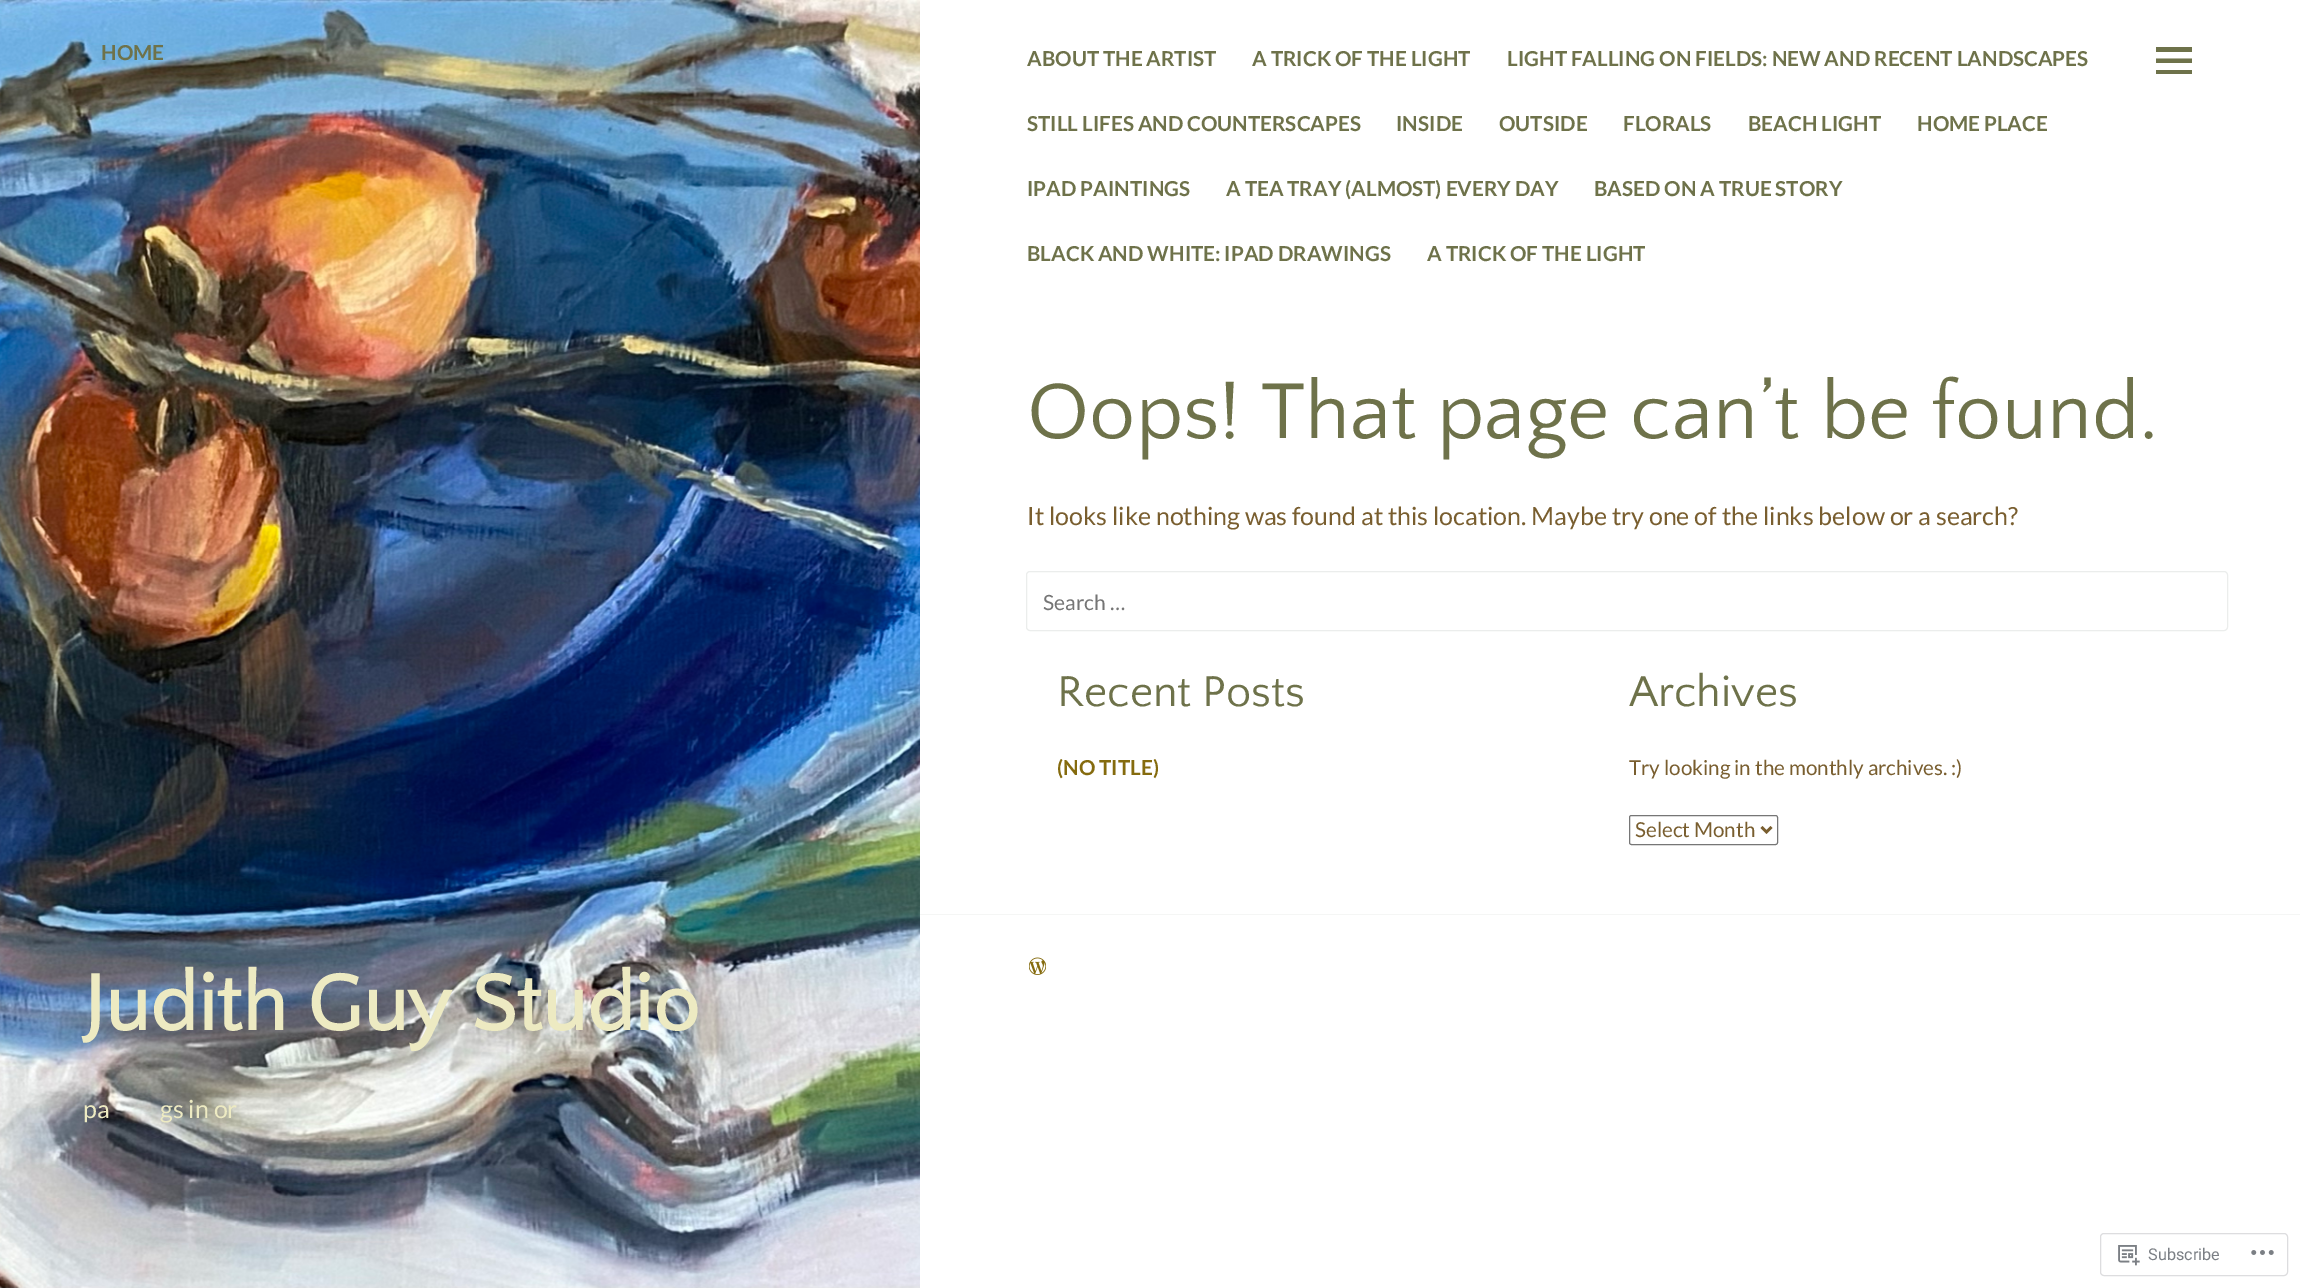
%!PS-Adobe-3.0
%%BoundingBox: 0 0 2300 1288
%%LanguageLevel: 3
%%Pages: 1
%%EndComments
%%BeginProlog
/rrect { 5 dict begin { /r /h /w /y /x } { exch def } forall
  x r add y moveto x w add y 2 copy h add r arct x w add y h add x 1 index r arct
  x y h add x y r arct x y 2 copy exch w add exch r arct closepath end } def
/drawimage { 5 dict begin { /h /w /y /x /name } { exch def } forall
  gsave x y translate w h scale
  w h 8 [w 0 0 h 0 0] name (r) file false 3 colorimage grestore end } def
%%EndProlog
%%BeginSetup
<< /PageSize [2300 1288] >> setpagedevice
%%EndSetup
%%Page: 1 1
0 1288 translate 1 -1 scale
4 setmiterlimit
1 setgray
0 0 2300 1288 rectfill
0.431 0.447 0.29 setrgbcolor
newpath 2156 74 moveto 2156 70 lineto 2192 70 lineto 2192 74 lineto closepath 2156 47 moveto 2192 47 lineto 2192 52 lineto 2156 52 lineto closepath 2156 63 moveto 2156 58.5 lineto 2192 58.5 lineto 2192 63 lineto closepath fill
0.922 0.929 0.925 setrgbcolor
1026.5 571.5 1201 59 3.5 rrect stroke
0.463 setgray
1629.5 815.5 148 29 2 rrect stroke
0.475 0.369 0.184 setrgbcolor
2.5 setlinewidth
newpath 1761.5 827 moveto 1766.5 832 lineto 1771.5 827 lineto stroke
0.961 0.965 0.961 setrgbcolor
920 914 1380 1 rectfill
(images/1.raw) 1029 957 17 18 drawimage
(images/2.raw) 0 0 920 1288 drawimage
0.867 0.867 0.875 setrgbcolor
1 setlinewidth
2100.5 1233.5 187 42 3.5 rrect stroke
(images/3.raw) 2118 1245 22 21 drawimage
(images/4.raw) 2251 1250 23 5 drawimage
/Lato-Bold [20.6 0 0 -20.6 0 0] selectfont
0.431 0.447 0.29 setrgbcolor
101 60 moveto (HOME) show
1027 66 moveto (ABOUT THE ARTIST) show
1252 66 moveto (A TRICK OF THE LIGHT) show
1507 66 moveto (LIGHT FALLING ON FIELDS: NEW AND RECENT LANDSCAPES) show
1027 131 moveto (STILL LIFES AND COUNTERSCAPES) show
1396 131 moveto (INSIDE) show
1499 131 moveto (OUTSIDE) show
1623 131 moveto (FLORALS) show
1748 131 moveto (BEACH LIGHT) show
1917 131 moveto (HOME PLACE) show
1027 196 moveto (IPAD PAINTINGS) show
1226 196 moveto (A TEA TRAY \(ALMOST\) EVERY DAY) show
1594 196 moveto (BASED ON A TRUE STORY) show
1027 261 moveto (BLACK AND WHITE: IPAD DRAWINGS) show
1427 261 moveto (A TRICK OF THE LIGHT) show
/QuattrocentoSans-Regular [82.5 0 0 -82.5 0 0] selectfont
1027 438 moveto (Oops! That page can’t be found.) show
/Lato-Regular [25 0 0 -25 0 0] selectfont
0.475 0.369 0.184 setrgbcolor
1027 525 moveto (It looks like nothing was found at this location. Maybe try one of the links below or a search?) show
/Lato-Regular [21 0 0 -21 0 0] selectfont
0.459 setgray
1043 610 moveto (Search …) show
/QuattrocentoSans-Regular [45 0 0 -45 0 0] selectfont
0.431 0.447 0.29 setrgbcolor
1057 706 moveto (Recent Posts) show
/Lato-Bold [20.6 0 0 -20.6 0 0] selectfont
0.522 0.42 0.055 setrgbcolor
1057 775 moveto (\(NO TITLE\)) show
/QuattrocentoSans-Regular [45 0 0 -45 0 0] selectfont
0.431 0.447 0.29 setrgbcolor
1629 706 moveto (Archives) show
/Lato-Regular [20.6 0 0 -20.6 0 0] selectfont
0.475 0.369 0.184 setrgbcolor
1629 775 moveto (Try looking in the monthly archives. :\)) show
1635 837 moveto (Select Month) show
/QuattrocentoSans-Bold [82.5 0 0 -82.5 0 0] selectfont
0.929 0.918 0.761 setrgbcolor
83 1030 moveto (Judith Guy Studio) show
/Lato-Regular [25 0 0 -25 0 0] selectfont
83 1118 moveto (pa) show
160 1118 moveto (gs in or) show
/Roboto-Regular [16.25 0 0 -16.25 0 0] selectfont
0.482 0.498 0.522 setrgbcolor
2148 1260 moveto (Subscribe) show
showpage
%%EOF
